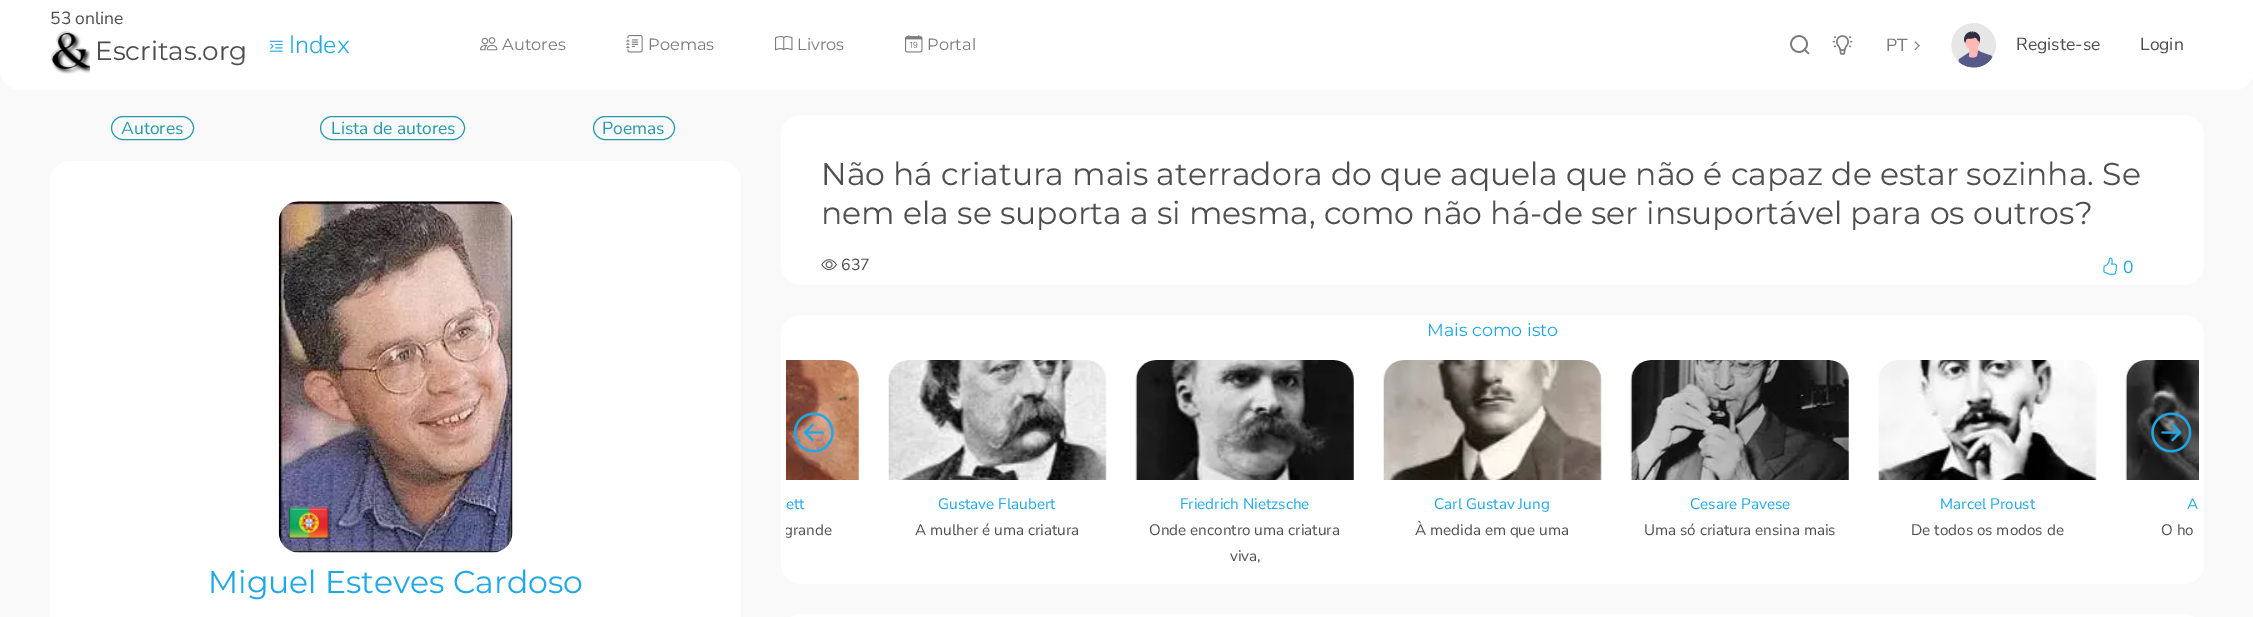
%!PS-Adobe-3.0
%%BoundingBox: 0 0 2253 617
%%LanguageLevel: 3
%%Pages: 1
%%EndComments
%%BeginProlog
/rrect { 5 dict begin { /r /h /w /y /x } { exch def } forall
  x r add y moveto x w add y 2 copy h add r arct x w add y h add x 1 index r arct
  x y h add x y r arct x y 2 copy exch w add exch r arct closepath end } def
/drawimage { 5 dict begin { /h /w /y /x /name } { exch def } forall
  gsave x y translate w h scale
  w h 8 [w 0 0 h 0 0] name (r) file false 3 colorimage grestore end } def
%%EndProlog
%%BeginSetup
<< /PageSize [2253 617] >> setpagedevice
%%EndSetup
%%Page: 1 1
0 617 translate 1 -1 scale
4 setmiterlimit
0.976 setgray
0 0 2253 617 rectfill
1 setgray
newpath 0 0 moveto 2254 0 lineto 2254 70 lineto 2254 81 2245 90 2234 90 curveto 20 90 lineto 9 90 0 81 0 70 curveto closepath fill
(images/1.raw) 50 31 40 43 drawimage
(images/2.raw) 269 40 14 12 drawimage
(images/3.raw) 480 37 18 14 drawimage
(images/4.raw) 626 35 17 18 drawimage
(images/5.raw) 775 36 18 15 drawimage
(images/6.raw) 905 35 18 18 drawimage
0.486 setgray
1.7 setlinewidth
newpath 1799 44 8 0 360 arc closepath stroke
1 setlinecap
1 setlinejoin
newpath 1804.5 49.5 moveto 1808.5 53.5 lineto stroke
(images/7.raw) 1832 35 21 20 drawimage
newpath 1915.5 41.5 moveto 1919.5 45.5 lineto 1919 46.5 lineto 1914.5 42 lineto closepath fill
newpath 1919 45 moveto 1919.5 45.5 lineto 1915.5 50 lineto 1914.5 49.5 lineto closepath fill
(images/8.raw) 1951 23 45 45 drawimage
0.153 0.604 0.675 setrgbcolor
1 setlinewidth
0 setlinecap
0 setlinejoin
111.5 116.5 82 23 11.5 rrect stroke
320.5 116.5 144 23 11.5 rrect stroke
593.5 116.5 81 23 11.5 rrect stroke
1 setgray
50 161 691 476 20 rrect fill
(images/9.raw) 278 201 235 352 drawimage
(images/10.raw) 288 506 41 33 drawimage
781 115 1423 170 20 rrect fill
(images/11.raw) 821 259 16 11 drawimage
(images/12.raw) 2103 257 14 18 drawimage
781 315 1423 269 20 rrect fill
(images/15.raw) 786 360 73 120 drawimage
(images/13.raw) 793 412 41 41 drawimage
(images/21.raw) 2125 360 74 120 drawimage
(images/14.raw) 2151 412 41 41 drawimage
(images/16.raw) 888 360 219 120 drawimage
(images/17.raw) 1135 360 219 120 drawimage
(images/18.raw) 1383 360 219 120 drawimage
(images/19.raw) 1630 360 219 120 drawimage
(images/20.raw) 1878 360 219 120 drawimage
781 614 1423 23 20 rrect fill
/NunitoSans-Regular [17.5 0 0 -17.5 0 0] selectfont
0.306 setgray
50 24 moveto (53 online) show
/Montserrat-Regular [26.25 0 0 -26.25 0 0] selectfont
95 60 moveto (Escritas.org) show
/NunitoSans-Light [25 0 0 -25 0 0] selectfont
0.118 0.659 0.906 setrgbcolor
289 53 moveto (Index) show
/Montserrat-Regular [16.25 0 0 -16.25 0 0] selectfont
0.486 setgray
502 50 moveto (Autores) show
648 50 moveto (Poemas) show
797 50 moveto (Livros) show
927 50 moveto (Portal) show
/NunitoSans-Regular [17.5 0 0 -17.5 0 0] selectfont
1886 51 moveto (PT) show
0.306 setgray
2016 50 moveto (Registe-se) show
2140 50 moveto (Login) show
0.153 0.604 0.675 setrgbcolor
121 134 moveto (Autores) show
331 134 moveto (Lista de autores) show
602 134 moveto (Poemas) show
/Montserrat-Regular [31.5 0 0 -31.5 0 0] selectfont
0.118 0.659 0.906 setrgbcolor
208 593 moveto (Miguel Esteves Cardoso) show
0.306 setgray
821 185 moveto (Não há criatura mais aterradora do que aquela que não é capaz de estar sozinha. Se) show
821 224 moveto (nem ela se suporta a si mesma, como não há-de ser insuportável para os outros?) show
/NunitoSans-Regular [16 0 0 -16 0 0] selectfont
841 270 moveto (637) show
/NunitoSans-Regular [17.5 0 0 -17.5 0 0] selectfont
0.118 0.659 0.906 setrgbcolor
2123 273 moveto (0) show
/Montserrat-Regular [17.5 0 0 -17.5 0 0] selectfont
1427 336 moveto (Mais como isto) show
/NunitoSans-Regular [15.25 0 0 -15.25 0 0] selectfont
786 509 moveto (ett) show
gsave
786 360 1413 219 rectclip
0.306 setgray
784 535 moveto (grande) show
grestore
938 509 moveto (Gustave Flaubert) show
0.306 setgray
915 535 moveto (A mulher é uma criatura) show
0.118 0.659 0.906 setrgbcolor
1180 509 moveto (Friedrich Nietzsche) show
0.306 setgray
1149 535 moveto (Onde encontro uma criatura) show
1230 561 moveto (viva,) show
0.118 0.659 0.906 setrgbcolor
1434 509 moveto (Carl Gustav Jung) show
0.306 setgray
1415 535 moveto (À medida em que uma) show
0.118 0.659 0.906 setrgbcolor
1690 509 moveto (Cesare Pavese) show
0.306 setgray
1644 535 moveto (Uma só criatura ensina mais) show
0.118 0.659 0.906 setrgbcolor
1940 509 moveto (Marcel Proust) show
0.306 setgray
1911 535 moveto (De todos os modos de) show
0.118 0.659 0.906 setrgbcolor
2187 509 moveto (A) show
0.306 setgray
2161 535 moveto (O ho) show
showpage
%%EOF
